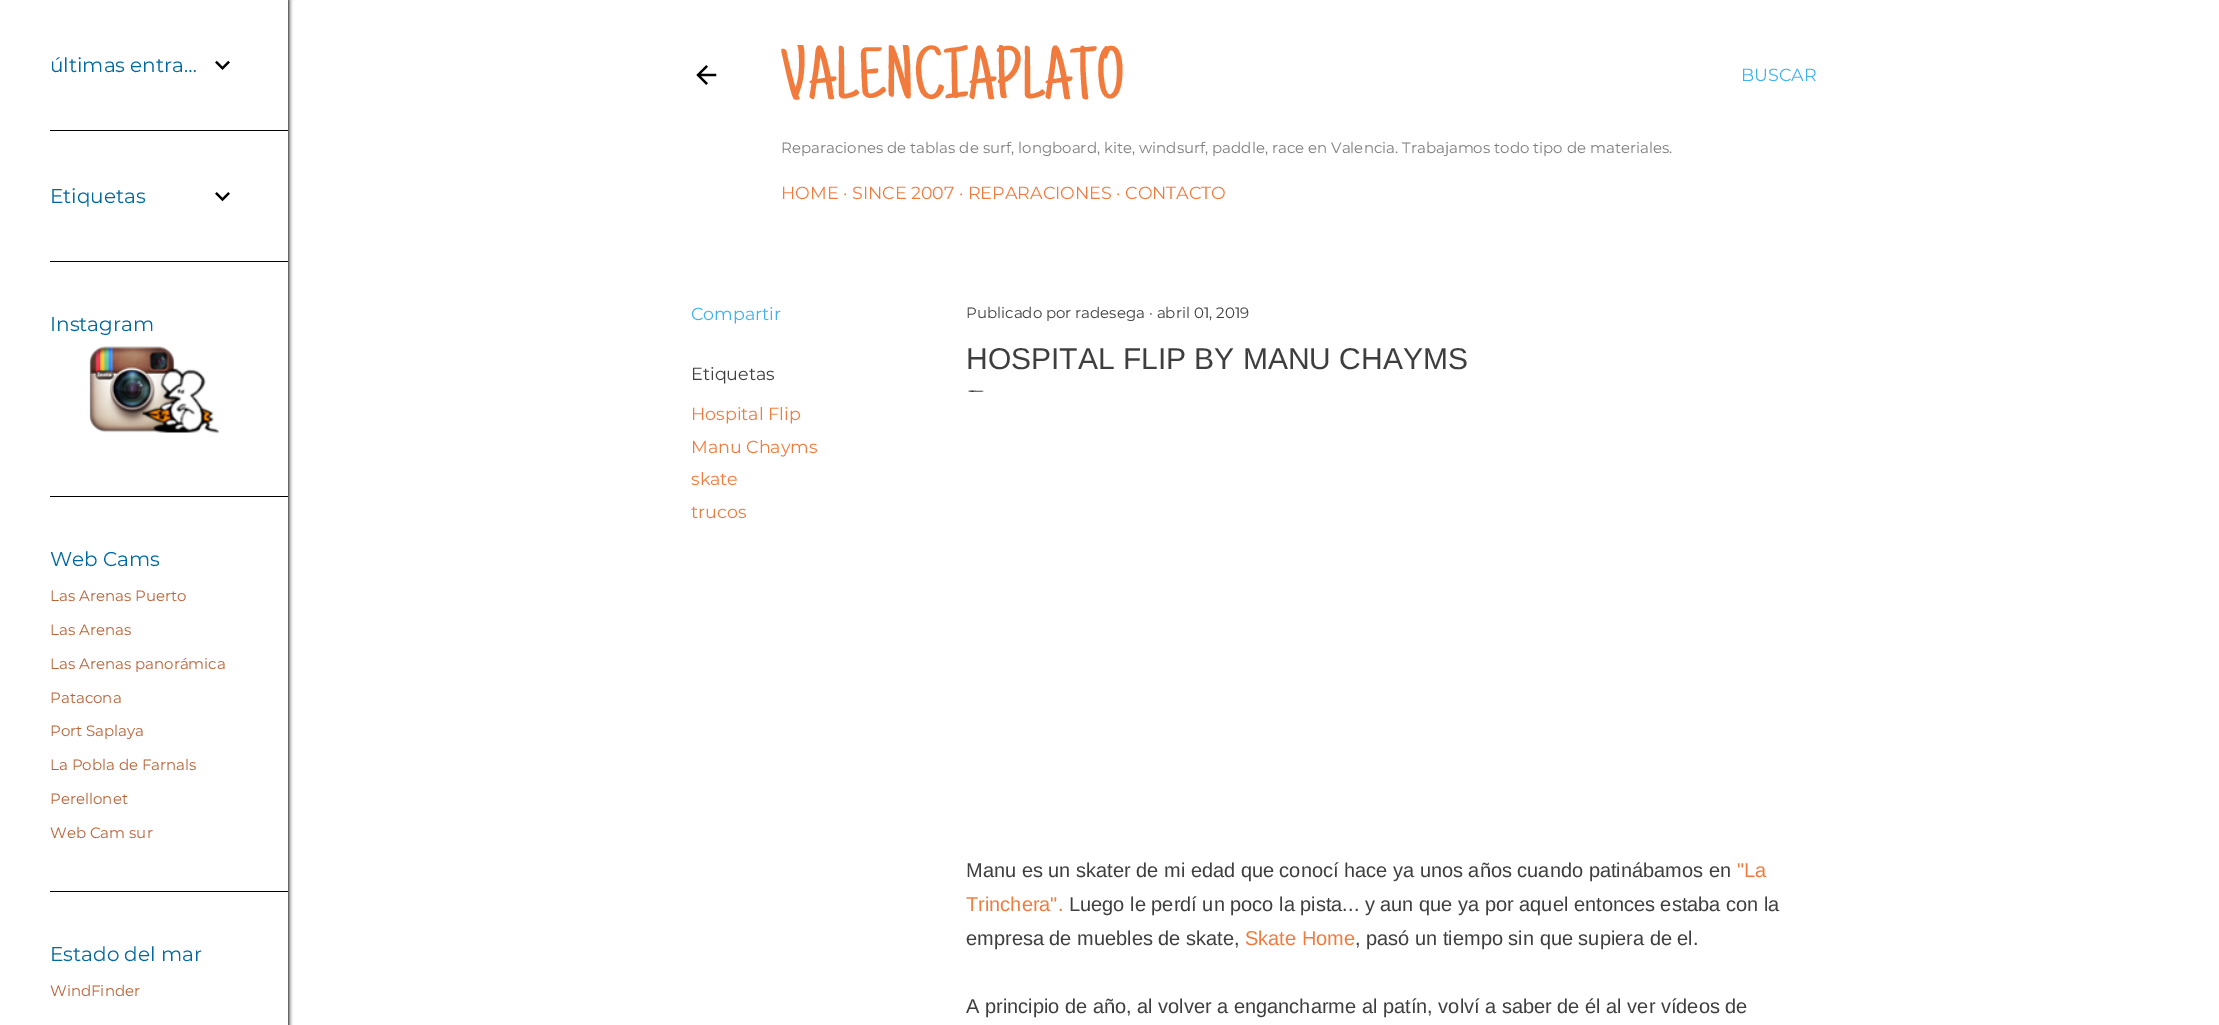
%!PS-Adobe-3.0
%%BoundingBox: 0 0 2219 1025
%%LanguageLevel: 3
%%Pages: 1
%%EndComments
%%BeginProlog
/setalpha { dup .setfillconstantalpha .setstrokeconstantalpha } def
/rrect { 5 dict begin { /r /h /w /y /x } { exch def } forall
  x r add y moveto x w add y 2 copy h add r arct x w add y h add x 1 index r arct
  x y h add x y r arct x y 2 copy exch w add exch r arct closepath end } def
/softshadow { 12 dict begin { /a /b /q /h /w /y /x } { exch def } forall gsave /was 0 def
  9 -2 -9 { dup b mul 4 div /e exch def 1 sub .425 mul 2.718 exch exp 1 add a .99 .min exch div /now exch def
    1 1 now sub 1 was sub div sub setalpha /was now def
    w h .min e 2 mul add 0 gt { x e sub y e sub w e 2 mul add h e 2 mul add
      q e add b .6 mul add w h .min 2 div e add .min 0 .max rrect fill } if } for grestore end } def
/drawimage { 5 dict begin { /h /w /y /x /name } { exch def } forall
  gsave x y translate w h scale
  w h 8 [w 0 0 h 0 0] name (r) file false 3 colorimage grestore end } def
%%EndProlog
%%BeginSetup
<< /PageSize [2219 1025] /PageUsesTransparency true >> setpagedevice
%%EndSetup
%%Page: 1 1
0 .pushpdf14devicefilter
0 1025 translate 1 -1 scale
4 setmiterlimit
1 setgray
0 0 2219 1025 rectfill
0 setgray
1 0 288 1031 0 2 1 softshadow
1 setgray
0 0 288 1025 rectfill
(images/1.raw) 215 60 15 10 drawimage
0 setgray
50 130 238 1 rectfill
(images/2.raw) 215 192 15 10 drawimage
50 261 238 1 rectfill
(images/3.raw) 89 346 130 87 drawimage
50 496 238 1 rectfill
50 891 238 1 rectfill
(images/4.raw) 696 65 21 20 drawimage
/Montserrat-Regular [20 0 0 -20 0 0] selectfont
0 0.408 0.631 setrgbcolor
50 72 moveto (últimas entra…) show
50 203 moveto (Etiquetas) show
50 331 moveto (Instagram) show
50 566 moveto (Web Cams) show
/Montserrat-Regular [15 0 0 -15 0 0] selectfont
0.722 0.384 0.212 setrgbcolor
50 601 moveto (Las Arenas Puerto) show
50 635 moveto (Las Arenas) show
50 669 moveto (Las Arenas panorámica) show
50 703 moveto (Patacona) show
50 736 moveto (Port Saplaya) show
50 770 moveto (La Pobla de Farnals) show
50 804 moveto (Perellonet) show
50 838 moveto (Web Cam sur) show
/Montserrat-Regular [20 0 0 -20 0 0] selectfont
0 0.408 0.631 setrgbcolor
50 961 moveto (Estado del mar) show
/Montserrat-Regular [15 0 0 -15 0 0] selectfont
0.722 0.384 0.212 setrgbcolor
50 996 moveto (WindFinder) show
gsave
781 45 900 165 rectclip
/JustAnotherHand-Regular [75 0 0 -75 0 0] selectfont
0.945 0.482 0.239 setrgbcolor
781 98 moveto (VALENCIAPLATO) show
grestore
0.486 setgray
781 153 moveto (Reparaciones de tablas de surf, longboard, kite, windsurf, paddle, race en Valencia. Trabajamos todo tipo de materiales.) show
/Montserrat-Regular [17.5 0 0 -17.5 0 0] selectfont
0.945 0.482 0.239 setrgbcolor
781 199 moveto (HOME · SINCE 2007 · REPARACIONES · CONTACTO) show
0.239 0.698 0.945 setrgbcolor
1741 81 moveto (BUSCAR) show
691 320 moveto (Compartir) show
0.243 setgray
691 380 moveto (Etiquetas) show
0.945 0.482 0.239 setrgbcolor
691 420 moveto (Hospital Flip) show
691 453 moveto (Manu Chayms) show
691 485 moveto (skate) show
691 518 moveto (trucos) show
/Montserrat-Regular [15 0 0 -15 0 0] selectfont
0.243 setgray
966 318 moveto (Publicado por radesega · abril 01, 2019) show
/LiberationSans-Regular [30 0 0 -30 0 0] selectfont
966 369 moveto (HOSPITAL FLIP BY MANU CHAYMS) show
/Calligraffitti-Regular [25 0 0 -25 0 0] selectfont
966 400 moveto (—) show
/LiberationSans-Regular [20 0 0 -20 0 0] selectfont
966 877 moveto (Manu es un skater de mi edad que conocí hace ya unos años cuando patinábamos en) show
0.945 0.482 0.239 setrgbcolor
1737 877 moveto ("La) show
966 911 moveto (Trinchera".) show
0.243 setgray
1069 911 moveto (Luego le perdí un poco la pista... y aun que ya por aquel entonces estaba con la) show
966 945 moveto (empresa de muebles de skate,) show
0.945 0.482 0.239 setrgbcolor
1245 945 moveto (Skate Home) show
0.243 setgray
1355 945 moveto (, pasó un tiempo sin que supiera de el.) show
966 1013 moveto (A principio de año, al volver a engancharme al patín, volví a saber de él al ver vídeos de) show
.poppdf14devicefilter showpage
%%EOF
